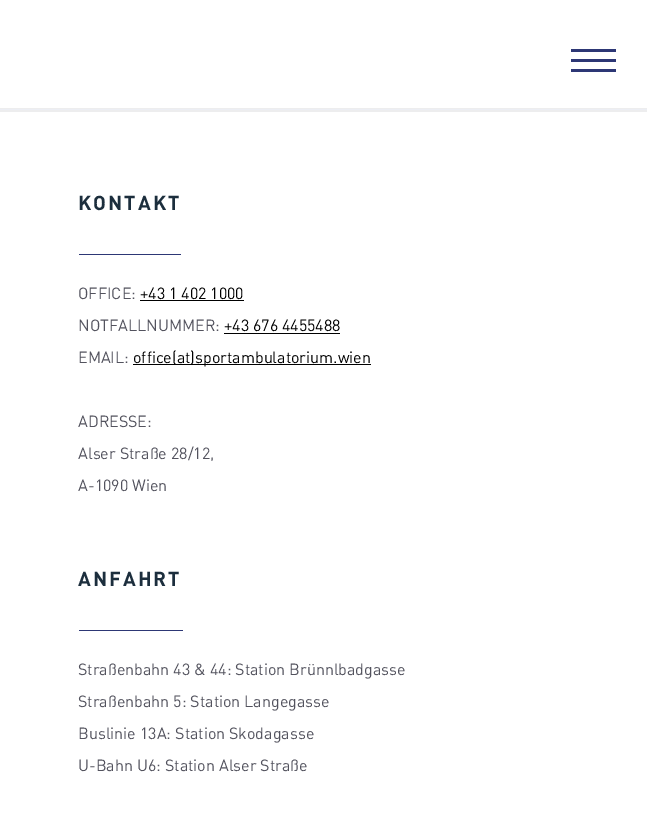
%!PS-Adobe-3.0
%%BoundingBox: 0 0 647 830
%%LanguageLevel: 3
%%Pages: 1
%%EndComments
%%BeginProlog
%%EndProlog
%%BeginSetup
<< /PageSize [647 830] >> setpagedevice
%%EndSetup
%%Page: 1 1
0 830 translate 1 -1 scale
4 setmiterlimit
1 setgray
0 0 647 830 rectfill
0.176 0.216 0.459 setrgbcolor
571 49 45 3 rectfill
571 59 45 3 rectfill
571 69 45 3 rectfill
0.929 0.929 0.933 setrgbcolor
0 108 647 4 rectfill
0.925 0.933 0.957 setrgbcolor
0 109 647 1 rectfill
0.176 0.216 0.459 setrgbcolor
79 254 102 1 rectfill
0 setgray
140 300 104 1 rectfill
224 333 116 1 rectfill
133 364 238 1 rectfill
0.176 0.216 0.459 setrgbcolor
79 630 104 1 rectfill
/DIN-Bold [20 0 0 -20 0 0] selectfont
0.11 0.18 0.239 setrgbcolor
78 210 moveto 2 0 (KONTAKT) ashow
/DIN-Regular [16 0 0 -16 0 0] selectfont
0.325 0.325 0.369 setrgbcolor
78 299 moveto (OFFICE:) show
0 setgray
140 299 moveto (+43 1 402 1000) show
0.325 0.325 0.369 setrgbcolor
78 331 moveto (NOTFALLNUMMER:) show
0 setgray
224 331 moveto (+43 676 4455488) show
0.325 0.325 0.369 setrgbcolor
78 363 moveto (EMAIL:) show
0 setgray
133 363 moveto (office\(at\)sportambulatorium.wien) show
0.325 0.325 0.369 setrgbcolor
78 427 moveto (ADRESSE:) show
78 459 moveto (Alser Straße 28/12,) show
78 491 moveto (A-1090 Wien) show
/DIN-Bold [20 0 0 -20 0 0] selectfont
0.11 0.18 0.239 setrgbcolor
78 586 moveto 2 0 (ANFAHRT) ashow
/DIN-Regular [16 0 0 -16 0 0] selectfont
0.325 0.325 0.369 setrgbcolor
78 675 moveto (Straßenbahn 43 & 44: Station Brünnlbadgasse) show
78 707 moveto (Straßenbahn 5: Station Langegasse) show
78 739 moveto (Buslinie 13A: Station Skodagasse) show
78 771 moveto (U-Bahn U6: Station Alser Straße) show
showpage
%%EOF
